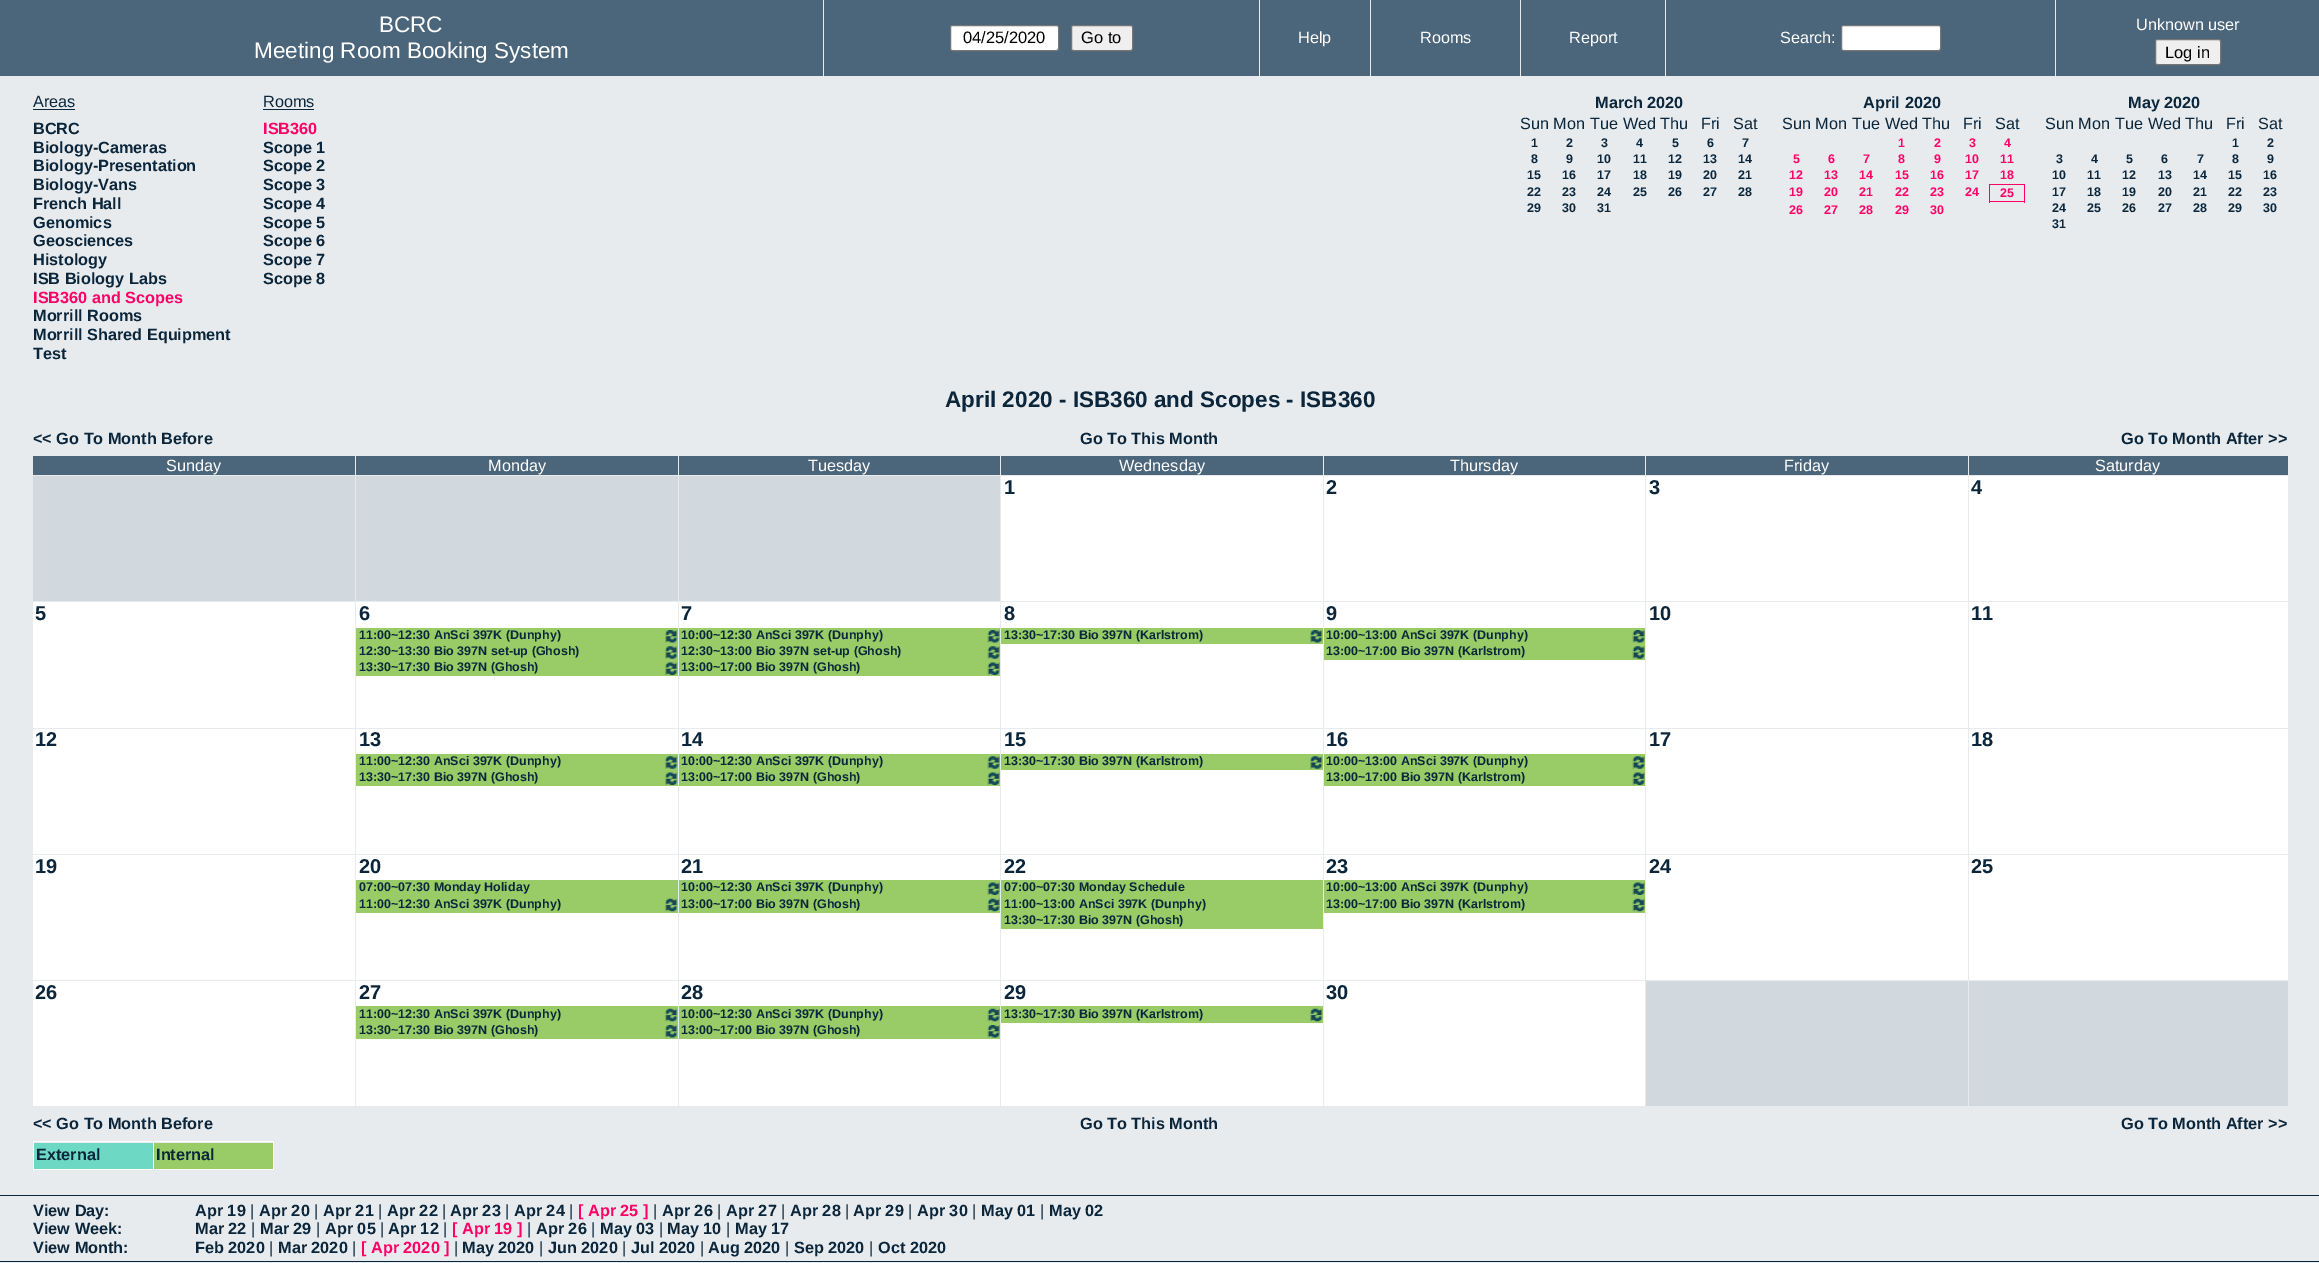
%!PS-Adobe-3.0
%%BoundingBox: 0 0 2319 1263
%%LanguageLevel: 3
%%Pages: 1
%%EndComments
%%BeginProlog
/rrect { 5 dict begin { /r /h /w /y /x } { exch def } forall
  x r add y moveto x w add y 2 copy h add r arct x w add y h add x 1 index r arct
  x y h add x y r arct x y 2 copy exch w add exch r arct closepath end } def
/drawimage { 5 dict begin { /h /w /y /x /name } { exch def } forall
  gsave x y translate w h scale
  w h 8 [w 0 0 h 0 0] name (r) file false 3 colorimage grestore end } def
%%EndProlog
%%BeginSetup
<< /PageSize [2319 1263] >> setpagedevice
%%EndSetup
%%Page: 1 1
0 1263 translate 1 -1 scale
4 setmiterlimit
0.906 0.922 0.933 setrgbcolor
0 0 2319 1263 rectfill
0.294 0.4 0.482 setrgbcolor
0 0 2319 76 rectfill
0.906 0.922 0.933 setrgbcolor
823 0 1 76 rectfill
1 setgray
950.5 25.5 108 25 2 rrect gsave fill grestore
0.463 setgray
stroke
0.937 setgray
1071.5 25.5 61 25 2 rrect gsave fill grestore
0.463 setgray
stroke
0.906 0.922 0.933 setrgbcolor
1259 0 1 76 rectfill
1370 0 1 76 rectfill
1520 0 1 76 rectfill
1665 0 1 76 rectfill
1 setgray
1841.5 25.5 99 25 2 rrect gsave fill grestore
0.463 setgray
stroke
0.906 0.922 0.933 setrgbcolor
2055 0 1 76 rectfill
0.937 setgray
2155.5 39.5 65 25 2 rrect gsave fill grestore
0.463 setgray
stroke
0.043 0.149 0.231 setrgbcolor
33 109 42 1 rectfill
263 109 51 1 rectfill
1 0 0.4 setrgbcolor
1989 184 36 1 rectfill
2024 184 1 19 rectfill
1989 201 36 1 rectfill
1989 184 1 19 rectfill
0.294 0.4 0.482 setrgbcolor
33 456 322 19 rectfill
356 456 322 19 rectfill
679 456 321 19 rectfill
1001 456 322 19 rectfill
1324 456 321 19 rectfill
1646 456 322 19 rectfill
1969 456 319 19 rectfill
0.82 0.851 0.871 setrgbcolor
33 476 322 125 rectfill
356 476 322 125 rectfill
679 476 321 125 rectfill
1 setgray
1001 476 322 125 rectfill
1324 476 321 125 rectfill
1646 476 322 125 rectfill
1969 476 319 125 rectfill
33 602 322 126 rectfill
356 602 322 126 rectfill
0.6 0.8 0.4 setrgbcolor
356 628 322 48 rectfill
(images/1.raw) 665 630 13 13 drawimage
(images/2.raw) 665 646 13 13 drawimage
(images/3.raw) 665 662 13 13 drawimage
1 setgray
679 602 321 126 rectfill
0.6 0.8 0.4 setrgbcolor
679 628 321 48 rectfill
(images/4.raw) 987 630 13 13 drawimage
(images/5.raw) 987 646 13 13 drawimage
(images/6.raw) 987 662 13 13 drawimage
1 setgray
1001 602 322 126 rectfill
0.6 0.8 0.4 setrgbcolor
1001 628 322 16 rectfill
(images/1.raw) 1310 630 13 13 drawimage
1 setgray
1324 602 321 126 rectfill
0.6 0.8 0.4 setrgbcolor
1324 628 321 32 rectfill
(images/4.raw) 1632 630 13 13 drawimage
(images/5.raw) 1632 646 13 13 drawimage
1 setgray
1646 602 322 126 rectfill
1969 602 319 126 rectfill
33 729 322 125 rectfill
356 729 322 125 rectfill
0.6 0.8 0.4 setrgbcolor
356 754 322 32 rectfill
(images/2.raw) 665 756 13 13 drawimage
(images/7.raw) 665 772 13 13 drawimage
1 setgray
679 729 321 125 rectfill
0.6 0.8 0.4 setrgbcolor
679 754 321 32 rectfill
(images/5.raw) 987 756 13 13 drawimage
(images/8.raw) 987 772 13 13 drawimage
1 setgray
1001 729 322 125 rectfill
0.6 0.8 0.4 setrgbcolor
1001 754 322 16 rectfill
(images/2.raw) 1310 756 13 13 drawimage
1 setgray
1324 729 321 125 rectfill
0.6 0.8 0.4 setrgbcolor
1324 754 321 32 rectfill
(images/5.raw) 1632 756 13 13 drawimage
(images/8.raw) 1632 772 13 13 drawimage
1 setgray
1646 729 322 125 rectfill
1969 729 319 125 rectfill
33 855 322 125 rectfill
356 855 322 125 rectfill
0.6 0.8 0.4 setrgbcolor
356 880 322 33 rectfill
(images/9.raw) 665 898 13 14 drawimage
1 setgray
679 855 321 125 rectfill
0.6 0.8 0.4 setrgbcolor
679 880 321 33 rectfill
(images/6.raw) 987 882 13 13 drawimage
(images/10.raw) 987 898 13 14 drawimage
1 setgray
1001 855 322 125 rectfill
0.6 0.8 0.4 setrgbcolor
1001 880 322 49 rectfill
1 setgray
1324 855 321 125 rectfill
0.6 0.8 0.4 setrgbcolor
1324 880 321 33 rectfill
(images/6.raw) 1632 882 13 13 drawimage
(images/10.raw) 1632 898 13 14 drawimage
1 setgray
1646 855 322 125 rectfill
1969 855 319 125 rectfill
33 981 322 125 rectfill
356 981 322 125 rectfill
0.6 0.8 0.4 setrgbcolor
356 1006 322 33 rectfill
(images/9.raw) 665 1008 13 14 drawimage
(images/11.raw) 665 1025 13 13 drawimage
1 setgray
679 981 321 125 rectfill
0.6 0.8 0.4 setrgbcolor
679 1006 321 33 rectfill
(images/10.raw) 987 1008 13 14 drawimage
(images/12.raw) 987 1025 13 13 drawimage
1 setgray
1001 981 322 125 rectfill
0.6 0.8 0.4 setrgbcolor
1001 1006 322 17 rectfill
(images/9.raw) 1310 1008 13 14 drawimage
1 setgray
1324 981 321 125 rectfill
0.82 0.851 0.871 setrgbcolor
1646 981 322 125 rectfill
1969 981 319 125 rectfill
0.427 0.851 0.769 setrgbcolor
34 1143 119 26 rectfill
1 setgray
153 1141 121 1 rectfill
273 1141 1 29 rectfill
153 1169 121 1 rectfill
153 1141 1 29 rectfill
33 1141 121 1 rectfill
33 1169 121 1 rectfill
33 1141 1 29 rectfill
0.6 0.8 0.4 setrgbcolor
154 1143 119 26 rectfill
0.043 0.149 0.231 setrgbcolor
0 1195 2319 1 rectfill
0 1261 2319 1 rectfill
/LiberationSans-Regular [22.5 0 0 -22.5 0 0] selectfont
1 setgray
379 32 moveto (BCRC) show
254 58 moveto (Meeting Room Booking System) show
/LiberationSans-Regular [16.5 0 0 -16.5 0 0] selectfont
0 setgray
963 43 moveto (04/25/2020) show
1081 43 moveto (Go to) show
/LiberationSans-Regular [16.25 0 0 -16.25 0 0] selectfont
1 setgray
1298 43 moveto (Help) show
1420 43 moveto (Rooms) show
1569 43 moveto (Report) show
1780 43 moveto (Search:) show
2136 30 moveto (Unknown user) show
/LiberationSans-Regular [16.5 0 0 -16.5 0 0] selectfont
0 setgray
2165 58 moveto (Log in) show
/LiberationSans-Regular [16.25 0 0 -16.25 0 0] selectfont
0.043 0.149 0.231 setrgbcolor
33 107 moveto (Areas) show
/LiberationSans-Bold [16.25 0 0 -16.25 0 0] selectfont
33 134 moveto (BCRC) show
33 153 moveto (Biology-Cameras) show
33 171 moveto (Biology-Presentation) show
33 190 moveto (Biology-Vans) show
33 209 moveto (French Hall) show
33 228 moveto (Genomics) show
33 246 moveto (Geosciences) show
33 265 moveto (Histology) show
33 284 moveto (ISB Biology Labs) show
1 0 0.4 setrgbcolor
33 303 moveto (ISB360 and Scopes) show
0.043 0.149 0.231 setrgbcolor
33 321 moveto (Morrill Rooms) show
33 340 moveto (Morrill Shared Equipment) show
33 359 moveto (Test) show
/LiberationSans-Regular [16.25 0 0 -16.25 0 0] selectfont
263 107 moveto (Rooms) show
/LiberationSans-Bold [16.25 0 0 -16.25 0 0] selectfont
1 0 0.4 setrgbcolor
263 134 moveto (ISB360) show
0.043 0.149 0.231 setrgbcolor
263 153 moveto (Scope 1) show
263 171 moveto (Scope 2) show
263 190 moveto (Scope 3) show
263 209 moveto (Scope 4) show
263 228 moveto (Scope 5) show
263 246 moveto (Scope 6) show
263 265 moveto (Scope 7) show
263 284 moveto (Scope 8) show
1595 108 moveto (March 2020) show
/LiberationSans-Regular [16.25 0 0 -16.25 0 0] selectfont
1520 129 moveto (Sun Mon) show
1590 129 moveto (Tue Wed Thu) show
1701 129 moveto (Fri) show
1733 129 moveto (Sat) show
/LiberationSans-Bold [12.5 0 0 -12.5 0 0] selectfont
1531 147 moveto (1) show
1566 147 moveto (2) show
1601 147 moveto (3) show
1636 147 moveto (4) show
1672 147 moveto (5) show
1707 147 moveto (6) show
1742 147 moveto (7) show
1531 163 moveto (8) show
1566 163 moveto (9) show
1597 163 moveto (10) show
1633 163 moveto (11) show
1668 163 moveto (12) show
1703 163 moveto (13) show
1738 163 moveto (14) show
1527 179 moveto (15) show
1562 179 moveto (16) show
1597 179 moveto (17) show
1633 179 moveto (18) show
1668 179 moveto (19) show
1703 179 moveto (20) show
1738 179 moveto (21) show
1527 196 moveto (22) show
1562 196 moveto (23) show
1597 196 moveto (24) show
1633 196 moveto (25) show
1668 196 moveto (26) show
1703 196 moveto (27) show
1738 196 moveto (28) show
1527 212 moveto (29) show
1562 212 moveto (30) show
1597 212 moveto (31) show
/LiberationSans-Bold [16.25 0 0 -16.25 0 0] selectfont
1863 108 moveto (April 2020) show
/LiberationSans-Regular [16.25 0 0 -16.25 0 0] selectfont
1782 129 moveto (Sun Mon) show
1852 129 moveto (Tue Wed Thu) show
1963 129 moveto (Fri) show
1995 129 moveto (Sat) show
/LiberationSans-Bold [12.5 0 0 -12.5 0 0] selectfont
1 0 0.4 setrgbcolor
1898 147 moveto (1) show
1934 147 moveto (2) show
1969 147 moveto (3) show
2004 147 moveto (4) show
1793 163 moveto (5) show
1828 163 moveto (6) show
1863 163 moveto (7) show
1898 163 moveto (8) show
1934 163 moveto (9) show
1965 163 moveto (10) show
2000 163 moveto (11) show
1789 179 moveto (12) show
1824 179 moveto (13) show
1859 179 moveto (14) show
1895 179 moveto (15) show
1930 179 moveto (16) show
1965 179 moveto (17) show
2000 179 moveto (18) show
1789 196 moveto (19) show
1824 196 moveto (20) show
1859 196 moveto (21) show
1895 196 moveto (22) show
1930 196 moveto (23) show
1965 196 moveto (24) show
2000 197 moveto (25) show
1789 214 moveto (26) show
1824 214 moveto (27) show
1859 214 moveto (28) show
1895 214 moveto (29) show
1930 214 moveto (30) show
/LiberationSans-Bold [16.25 0 0 -16.25 0 0] selectfont
0.043 0.149 0.231 setrgbcolor
2128 108 moveto (May 2020) show
/LiberationSans-Regular [16.25 0 0 -16.25 0 0] selectfont
2045 129 moveto (Sun Mon) show
2115 129 moveto (Tue Wed Thu) show
2226 129 moveto (Fri) show
2258 129 moveto (Sat) show
/LiberationSans-Bold [12.5 0 0 -12.5 0 0] selectfont
2232 147 moveto (1) show
2267 147 moveto (2) show
2056 163 moveto (3) show
2091 163 moveto (4) show
2126 163 moveto (5) show
2161 163 moveto (6) show
2197 163 moveto (7) show
2232 163 moveto (8) show
2267 163 moveto (9) show
2052 179 moveto (10) show
2087 179 moveto (11) show
2122 179 moveto (12) show
2158 179 moveto (13) show
2193 179 moveto (14) show
2228 179 moveto (15) show
2263 179 moveto (16) show
2052 196 moveto (17) show
2087 196 moveto (18) show
2122 196 moveto (19) show
2158 196 moveto (20) show
2193 196 moveto (21) show
2228 196 moveto (22) show
2263 196 moveto (23) show
2052 212 moveto (24) show
2087 212 moveto (25) show
2122 212 moveto (26) show
2158 212 moveto (27) show
2193 212 moveto (28) show
2228 212 moveto (29) show
2263 212 moveto (30) show
2052 228 moveto (31) show
/LiberationSans-Bold [22.5 0 0 -22.5 0 0] selectfont
945 407 moveto (April 2020 - ISB360 and Scopes - ISB360) show
/LiberationSans-Bold [16.25 0 0 -16.25 0 0] selectfont
33 444 moveto (<< Go To Month Before) show
1080 444 moveto (Go To This Month) show
2121 444 moveto (Go To Month After >>) show
/LiberationSans-Regular [16.25 0 0 -16.25 0 0] selectfont
1 setgray
166 471 moveto (Sunday) show
488 471 moveto (Monday) show
808 471 moveto (Tuesday) show
1119 471 moveto (Wednesday) show
1450 471 moveto (Thursday) show
1784 471 moveto (Friday) show
2095 471 moveto (Saturday) show
/LiberationSans-Bold [20 0 0 -20 0 0] selectfont
0.043 0.149 0.231 setrgbcolor
1004 494 moveto (1) show
1326 494 moveto (2) show
1649 494 moveto (3) show
1971 494 moveto (4) show
35 620 moveto (5) show
359 620 moveto (6) show
/LiberationSans-Bold [12.5 0 0 -12.5 0 0] selectfont
359 639 moveto (11:00~12:30 AnSci 397K \(Dunphy\)) show
359 655 moveto (12:30~13:30 Bio 397N set-up \(Ghosh\)) show
359 671 moveto (13:30~17:30 Bio 397N \(Ghosh\)) show
/LiberationSans-Bold [20 0 0 -20 0 0] selectfont
681 620 moveto (7) show
/LiberationSans-Bold [12.5 0 0 -12.5 0 0] selectfont
681 639 moveto (10:00~12:30 AnSci 397K \(Dunphy\)) show
681 655 moveto (12:30~13:00 Bio 397N set-up \(Ghosh\)) show
681 671 moveto (13:00~17:00 Bio 397N \(Ghosh\)) show
/LiberationSans-Bold [20 0 0 -20 0 0] selectfont
1004 620 moveto (8) show
/LiberationSans-Bold [12.5 0 0 -12.5 0 0] selectfont
1004 639 moveto (13:30~17:30 Bio 397N \(Karlstrom\)) show
/LiberationSans-Bold [20 0 0 -20 0 0] selectfont
1326 620 moveto (9) show
/LiberationSans-Bold [12.5 0 0 -12.5 0 0] selectfont
1326 639 moveto (10:00~13:00 AnSci 397K \(Dunphy\)) show
1326 655 moveto (13:00~17:00 Bio 397N \(Karlstrom\)) show
/LiberationSans-Bold [20 0 0 -20 0 0] selectfont
1649 620 moveto (10) show
1971 620 moveto (11) show
35 746 moveto (12) show
359 746 moveto (13) show
/LiberationSans-Bold [12.5 0 0 -12.5 0 0] selectfont
359 765 moveto (11:00~12:30 AnSci 397K \(Dunphy\)) show
359 781 moveto (13:30~17:30 Bio 397N \(Ghosh\)) show
/LiberationSans-Bold [20 0 0 -20 0 0] selectfont
681 746 moveto (14) show
/LiberationSans-Bold [12.5 0 0 -12.5 0 0] selectfont
681 765 moveto (10:00~12:30 AnSci 397K \(Dunphy\)) show
681 781 moveto (13:00~17:00 Bio 397N \(Ghosh\)) show
/LiberationSans-Bold [20 0 0 -20 0 0] selectfont
1004 746 moveto (15) show
/LiberationSans-Bold [12.5 0 0 -12.5 0 0] selectfont
1004 765 moveto (13:30~17:30 Bio 397N \(Karlstrom\)) show
/LiberationSans-Bold [20 0 0 -20 0 0] selectfont
1326 746 moveto (16) show
/LiberationSans-Bold [12.5 0 0 -12.5 0 0] selectfont
1326 765 moveto (10:00~13:00 AnSci 397K \(Dunphy\)) show
1326 781 moveto (13:00~17:00 Bio 397N \(Karlstrom\)) show
/LiberationSans-Bold [20 0 0 -20 0 0] selectfont
1649 746 moveto (17) show
1971 746 moveto (18) show
35 873 moveto (19) show
359 873 moveto (20) show
/LiberationSans-Bold [12.5 0 0 -12.5 0 0] selectfont
359 891 moveto (07:00~07:30 Monday Holiday) show
359 908 moveto (11:00~12:30 AnSci 397K \(Dunphy\)) show
/LiberationSans-Bold [20 0 0 -20 0 0] selectfont
681 873 moveto (21) show
/LiberationSans-Bold [12.5 0 0 -12.5 0 0] selectfont
681 891 moveto (10:00~12:30 AnSci 397K \(Dunphy\)) show
681 908 moveto (13:00~17:00 Bio 397N \(Ghosh\)) show
/LiberationSans-Bold [20 0 0 -20 0 0] selectfont
1004 873 moveto (22) show
/LiberationSans-Bold [12.5 0 0 -12.5 0 0] selectfont
1004 891 moveto (07:00~07:30 Monday Schedule) show
1004 908 moveto (11:00~13:00 AnSci 397K \(Dunphy\)) show
1004 924 moveto (13:30~17:30 Bio 397N \(Ghosh\)) show
/LiberationSans-Bold [20 0 0 -20 0 0] selectfont
1326 873 moveto (23) show
/LiberationSans-Bold [12.5 0 0 -12.5 0 0] selectfont
1326 891 moveto (10:00~13:00 AnSci 397K \(Dunphy\)) show
1326 908 moveto (13:00~17:00 Bio 397N \(Karlstrom\)) show
/LiberationSans-Bold [20 0 0 -20 0 0] selectfont
1649 873 moveto (24) show
1971 873 moveto (25) show
35 999 moveto (26) show
359 999 moveto (27) show
/LiberationSans-Bold [12.5 0 0 -12.5 0 0] selectfont
359 1018 moveto (11:00~12:30 AnSci 397K \(Dunphy\)) show
359 1034 moveto (13:30~17:30 Bio 397N \(Ghosh\)) show
/LiberationSans-Bold [20 0 0 -20 0 0] selectfont
681 999 moveto (28) show
/LiberationSans-Bold [12.5 0 0 -12.5 0 0] selectfont
681 1018 moveto (10:00~12:30 AnSci 397K \(Dunphy\)) show
681 1034 moveto (13:00~17:00 Bio 397N \(Ghosh\)) show
/LiberationSans-Bold [20 0 0 -20 0 0] selectfont
1004 999 moveto (29) show
/LiberationSans-Bold [12.5 0 0 -12.5 0 0] selectfont
1004 1018 moveto (13:30~17:30 Bio 397N \(Karlstrom\)) show
/LiberationSans-Bold [20 0 0 -20 0 0] selectfont
1326 999 moveto (30) show
/LiberationSans-Bold [16.25 0 0 -16.25 0 0] selectfont
33 1129 moveto (<< Go To Month Before) show
1080 1129 moveto (Go To This Month) show
2121 1129 moveto (Go To Month After >>) show
36 1160 moveto (External) show
156 1160 moveto (Internal) show
33 1216 moveto (View Day:) show
195 1216 moveto (Apr 19) show
/LiberationSans-Regular [16.25 0 0 -16.25 0 0] selectfont
250 1216 moveto (|) show
/LiberationSans-Bold [16.25 0 0 -16.25 0 0] selectfont
259 1216 moveto (Apr 20) show
/LiberationSans-Regular [16.25 0 0 -16.25 0 0] selectfont
314 1216 moveto (|) show
/LiberationSans-Bold [16.25 0 0 -16.25 0 0] selectfont
323 1216 moveto (Apr 21) show
/LiberationSans-Regular [16.25 0 0 -16.25 0 0] selectfont
378 1216 moveto (|) show
/LiberationSans-Bold [16.25 0 0 -16.25 0 0] selectfont
387 1216 moveto (Apr 22) show
/LiberationSans-Regular [16.25 0 0 -16.25 0 0] selectfont
442 1216 moveto (|) show
/LiberationSans-Bold [16.25 0 0 -16.25 0 0] selectfont
450 1216 moveto (Apr 23) show
/LiberationSans-Regular [16.25 0 0 -16.25 0 0] selectfont
505 1216 moveto (|) show
/LiberationSans-Bold [16.25 0 0 -16.25 0 0] selectfont
514 1216 moveto (Apr 24) show
/LiberationSans-Regular [16.25 0 0 -16.25 0 0] selectfont
569 1216 moveto (|) show
/LiberationSans-Bold [16.25 0 0 -16.25 0 0] selectfont
1 0 0.4 setrgbcolor
578 1216 moveto ([ Apr 25 ]) show
/LiberationSans-Regular [16.25 0 0 -16.25 0 0] selectfont
0.043 0.149 0.231 setrgbcolor
653 1216 moveto (|) show
/LiberationSans-Bold [16.25 0 0 -16.25 0 0] selectfont
662 1216 moveto (Apr 26) show
/LiberationSans-Regular [16.25 0 0 -16.25 0 0] selectfont
717 1216 moveto (|) show
/LiberationSans-Bold [16.25 0 0 -16.25 0 0] selectfont
726 1216 moveto (Apr 27) show
/LiberationSans-Regular [16.25 0 0 -16.25 0 0] selectfont
781 1216 moveto (|) show
/LiberationSans-Bold [16.25 0 0 -16.25 0 0] selectfont
790 1216 moveto (Apr 28) show
/LiberationSans-Regular [16.25 0 0 -16.25 0 0] selectfont
845 1216 moveto (|) show
/LiberationSans-Bold [16.25 0 0 -16.25 0 0] selectfont
853 1216 moveto (Apr 29) show
/LiberationSans-Regular [16.25 0 0 -16.25 0 0] selectfont
908 1216 moveto (|) show
/LiberationSans-Bold [16.25 0 0 -16.25 0 0] selectfont
917 1216 moveto (Apr 30) show
/LiberationSans-Regular [16.25 0 0 -16.25 0 0] selectfont
972 1216 moveto (|) show
/LiberationSans-Bold [16.25 0 0 -16.25 0 0] selectfont
981 1216 moveto (May 01) show
/LiberationSans-Regular [16.25 0 0 -16.25 0 0] selectfont
1040 1216 moveto (|) show
/LiberationSans-Bold [16.25 0 0 -16.25 0 0] selectfont
1049 1216 moveto (May 02) show
33 1234 moveto (View Week:) show
195 1234 moveto (Mar 22) show
/LiberationSans-Regular [16.25 0 0 -16.25 0 0] selectfont
251 1234 moveto (|) show
/LiberationSans-Bold [16.25 0 0 -16.25 0 0] selectfont
260 1234 moveto (Mar 29) show
/LiberationSans-Regular [16.25 0 0 -16.25 0 0] selectfont
316 1234 moveto (|) show
/LiberationSans-Bold [16.25 0 0 -16.25 0 0] selectfont
325 1234 moveto (Apr 05) show
/LiberationSans-Regular [16.25 0 0 -16.25 0 0] selectfont
380 1234 moveto (|) show
/LiberationSans-Bold [16.25 0 0 -16.25 0 0] selectfont
388 1234 moveto (Apr 12) show
/LiberationSans-Regular [16.25 0 0 -16.25 0 0] selectfont
443 1234 moveto (|) show
/LiberationSans-Bold [16.25 0 0 -16.25 0 0] selectfont
1 0 0.4 setrgbcolor
452 1234 moveto ([ Apr 19 ]) show
/LiberationSans-Regular [16.25 0 0 -16.25 0 0] selectfont
0.043 0.149 0.231 setrgbcolor
527 1234 moveto (|) show
/LiberationSans-Bold [16.25 0 0 -16.25 0 0] selectfont
536 1234 moveto (Apr 26) show
/LiberationSans-Regular [16.25 0 0 -16.25 0 0] selectfont
591 1234 moveto (|) show
/LiberationSans-Bold [16.25 0 0 -16.25 0 0] selectfont
600 1234 moveto (May 03) show
/LiberationSans-Regular [16.25 0 0 -16.25 0 0] selectfont
659 1234 moveto (|) show
/LiberationSans-Bold [16.25 0 0 -16.25 0 0] selectfont
667 1234 moveto (May 10) show
/LiberationSans-Regular [16.25 0 0 -16.25 0 0] selectfont
726 1234 moveto (|) show
/LiberationSans-Bold [16.25 0 0 -16.25 0 0] selectfont
735 1234 moveto (May 17) show
33 1253 moveto (View Month:) show
195 1253 moveto (Feb 2020) show
/LiberationSans-Regular [16.25 0 0 -16.25 0 0] selectfont
269 1253 moveto (|) show
/LiberationSans-Bold [16.25 0 0 -16.25 0 0] selectfont
278 1253 moveto (Mar 2020) show
/LiberationSans-Regular [16.25 0 0 -16.25 0 0] selectfont
352 1253 moveto (|) show
/LiberationSans-Bold [16.25 0 0 -16.25 0 0] selectfont
1 0 0.4 setrgbcolor
361 1253 moveto ([ Apr 2020 ]) show
/LiberationSans-Regular [16.25 0 0 -16.25 0 0] selectfont
0.043 0.149 0.231 setrgbcolor
454 1253 moveto (|) show
/LiberationSans-Bold [16.25 0 0 -16.25 0 0] selectfont
462 1253 moveto (May 2020) show
/LiberationSans-Regular [16.25 0 0 -16.25 0 0] selectfont
539 1253 moveto (|) show
/LiberationSans-Bold [16.25 0 0 -16.25 0 0] selectfont
548 1253 moveto (Jun 2020) show
/LiberationSans-Regular [16.25 0 0 -16.25 0 0] selectfont
622 1253 moveto (|) show
/LiberationSans-Bold [16.25 0 0 -16.25 0 0] selectfont
631 1253 moveto (Jul 2020) show
/LiberationSans-Regular [16.25 0 0 -16.25 0 0] selectfont
700 1253 moveto (|) show
/LiberationSans-Bold [16.25 0 0 -16.25 0 0] selectfont
708 1253 moveto (Aug 2020) show
/LiberationSans-Regular [16.25 0 0 -16.25 0 0] selectfont
785 1253 moveto (|) show
/LiberationSans-Bold [16.25 0 0 -16.25 0 0] selectfont
794 1253 moveto (Sep 2020) show
/LiberationSans-Regular [16.25 0 0 -16.25 0 0] selectfont
869 1253 moveto (|) show
/LiberationSans-Bold [16.25 0 0 -16.25 0 0] selectfont
878 1253 moveto (Oct 2020) show
showpage
%%EOF
